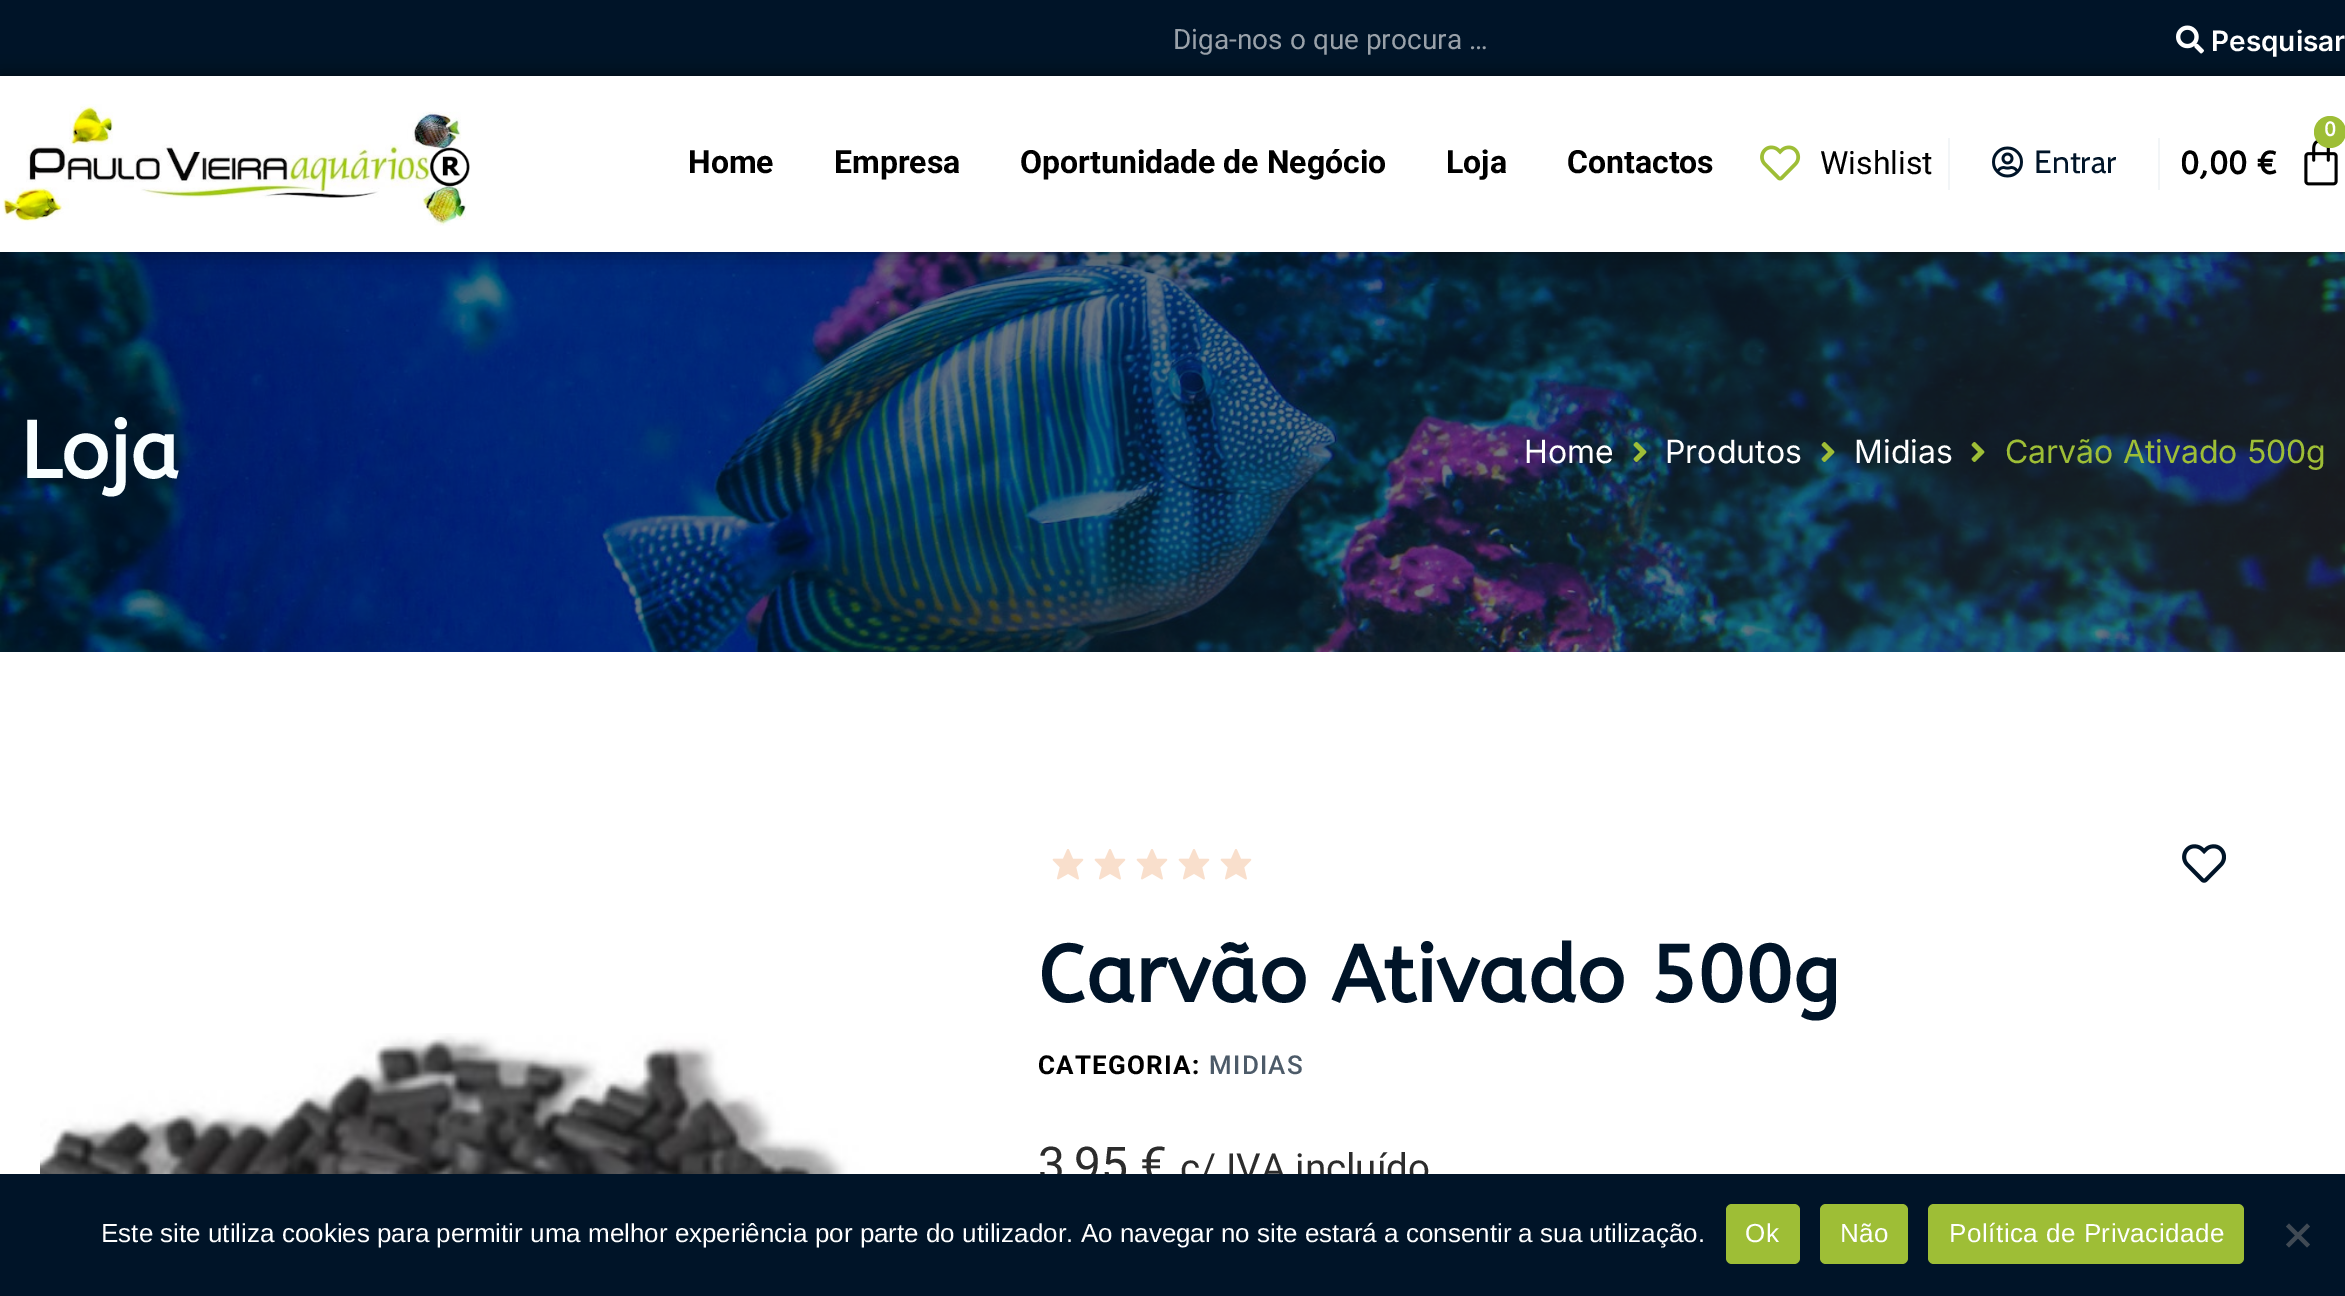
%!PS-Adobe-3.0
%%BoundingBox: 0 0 2345 1296
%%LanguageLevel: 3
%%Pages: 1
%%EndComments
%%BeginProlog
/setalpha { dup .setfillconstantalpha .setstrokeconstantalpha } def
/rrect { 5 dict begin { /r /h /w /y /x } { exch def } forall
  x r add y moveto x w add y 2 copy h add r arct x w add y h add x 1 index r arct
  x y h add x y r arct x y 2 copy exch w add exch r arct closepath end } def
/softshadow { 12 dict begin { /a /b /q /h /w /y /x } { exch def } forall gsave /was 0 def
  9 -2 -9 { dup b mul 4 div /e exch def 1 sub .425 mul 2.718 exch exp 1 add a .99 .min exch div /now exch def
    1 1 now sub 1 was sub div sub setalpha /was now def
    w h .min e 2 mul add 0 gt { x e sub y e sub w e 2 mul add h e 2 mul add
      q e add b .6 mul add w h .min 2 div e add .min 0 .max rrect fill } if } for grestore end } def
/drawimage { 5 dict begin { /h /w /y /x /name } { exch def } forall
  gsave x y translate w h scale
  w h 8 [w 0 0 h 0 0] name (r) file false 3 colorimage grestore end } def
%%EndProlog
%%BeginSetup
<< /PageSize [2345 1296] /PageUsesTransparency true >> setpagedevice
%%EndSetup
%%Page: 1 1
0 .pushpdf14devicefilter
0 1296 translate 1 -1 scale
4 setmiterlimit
1 setgray
0 0 2345 1296 rectfill
0 0.078 0.157 setrgbcolor
0 0 2345 76 rectfill
(images/1.raw) 2176 25 28 29 drawimage
(images/6.raw) 0 252 2345 400 drawimage
0 setgray
0 76 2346 176 0 10 0.5 softshadow
1 setgray
0 76 2345 176 rectfill
(images/2.raw) 3 104 467 122 drawimage
(images/3.raw) 1760 145 41 36 drawimage
0.949 0.961 0.969 setrgbcolor
2158 138 2 52 rectfill
1948 138 2 52 rectfill
(images/4.raw) 1992 146 31 32 drawimage
(images/5.raw) 2304 140 34 46 drawimage
0.62 0.745 0.212 setrgbcolor
newpath 2330 132 16 0 360 arc closepath fill
(images/7.raw) 1633 442 14 20 drawimage
(images/8.raw) 1821 442 14 20 drawimage
(images/9.raw) 1971 442 14 20 drawimage
(images/10.raw) 40 1033 858 141 drawimage
(images/11.raw) 1052 849 32 31 drawimage
(images/11.raw) 1094 849 32 31 drawimage
(images/11.raw) 1136 849 32 31 drawimage
(images/11.raw) 1178 849 32 31 drawimage
(images/11.raw) 1220 849 32 31 drawimage
(images/12.raw) 2182 844 44 39 drawimage
/Roboto-Regular [28 0 0 -28 0 0] selectfont
0.6 0.631 0.663 setrgbcolor
1173 49 moveto (Diga-nos o que procura …) show
/Inter-SemiBold [28 0 0 -28 0 0] selectfont
1 setgray
2211 51 moveto (Pesquisar) show
/Roboto-Bold [32 0 0 -32 0 0] selectfont
0 setgray
688 173 moveto (Home) show
834 173 moveto (Empresa) show
1020 173 moveto (Oportunidade de Negócio) show
1446 173 moveto (Loja) show
1567 173 moveto (Contactos) show
/Roboto-Regular [32 0 0 -32 0 0] selectfont
1820 174 moveto (Wishlist) show
/Cabin-Regular [32 0 0 -32 0 0] selectfont
0 0.078 0.157 setrgbcolor
2034 173 moveto (Entrar) show
/ABeeZee-Bold [20 0 0 -20 0 0] selectfont
1 setgray
2324 136 moveto (0) show
/ABeeZee-Bold [32 0 0 -32 0 0] selectfont
0 setgray
2180 174 moveto (0,00 €) show
/ABeeZee-Bold [80 0 0 -80 0 0] selectfont
0.973 0.996 1 setrgbcolor
20 478 moveto (Loja) show
/Inter-Regular [32 0 0 -32 0 0] selectfont
1 setgray
1524 463 moveto (Home) show
1665 463 moveto (Produtos) show
1854 463 moveto (Midias) show
0.62 0.745 0.212 setrgbcolor
2005 463 moveto (Carvão Ativado 500g) show
/ABeeZee-Bold [80 0 0 -80 0 0] selectfont
0 0.078 0.157 setrgbcolor
1038 1002 moveto (Carvão Ativado 500g) show
/Roboto-Bold [26 0 0 -26 0 0] selectfont
0 setgray
1038 1074 moveto 1.25 0 (CATEGORIA:) ashow
/Roboto-Medium [26 0 0 -26 0 0] selectfont
0.302 0.357 0.412 setrgbcolor
1209 1074 moveto 1.25 0 (MIDIAS) ashow
/Roboto-Regular [48 0 0 -48 0 0] selectfont
0.173 setgray
1038 1181 moveto (3,95 €) show
/Roboto-Regular [38.5 0 0 -38.5 0 0] selectfont
1180 1181 moveto (c/ IVA incluído) show
0 0.078 0.157 setrgbcolor
0 1174 2345 122 rectfill
/LiberationSans-Regular [26 0 0 -26 0 0] selectfont
1 setgray
101 1242 moveto (Este site utiliza cookies para permitir uma melhor experiência por parte do utilizador. Ao navegar no site estará a consentir a sua utilização.) show
0.62 0.745 0.212 setrgbcolor
1726 1204 74 60 6 rrect fill
1 setgray
1745 1242 moveto 0.5 0 (Ok) ashow
0.62 0.745 0.212 setrgbcolor
1820 1204 88 60 6 rrect fill
1 setgray
1840 1242 moveto 0.5 0 (Não) ashow
0.62 0.745 0.212 setrgbcolor
1928 1204 316 60 6 rrect fill
1 setgray
1949 1242 moveto 0.5 0 (Política de Privacidade) ashow
0.251 0.29 0.329 setrgbcolor
newpath 2307 1223.5 moveto 2310 1226.5 lineto 2289 1247.5 lineto 2286 1244.5 lineto closepath fill
newpath 2286 1226.5 moveto 2289 1223.5 lineto 2310 1244.5 lineto 2307 1247.5 lineto closepath fill
.poppdf14devicefilter showpage
%%EOF
